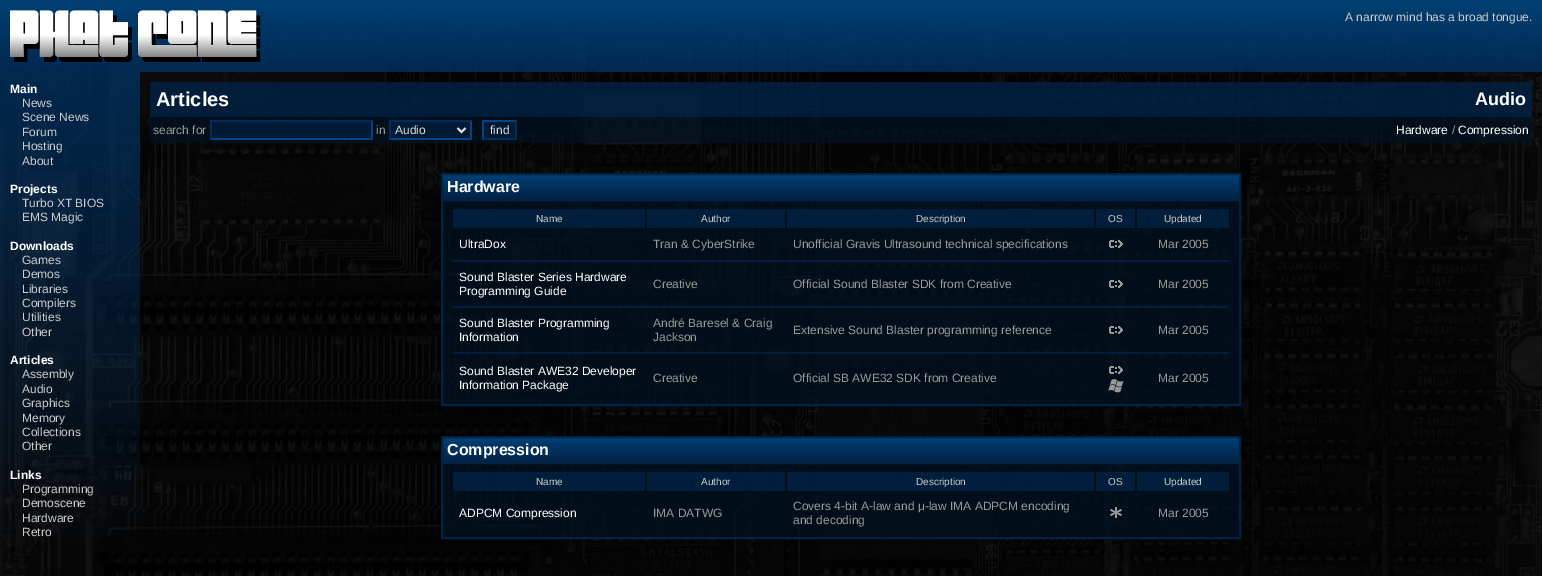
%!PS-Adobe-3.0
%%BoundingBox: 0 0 1542 576
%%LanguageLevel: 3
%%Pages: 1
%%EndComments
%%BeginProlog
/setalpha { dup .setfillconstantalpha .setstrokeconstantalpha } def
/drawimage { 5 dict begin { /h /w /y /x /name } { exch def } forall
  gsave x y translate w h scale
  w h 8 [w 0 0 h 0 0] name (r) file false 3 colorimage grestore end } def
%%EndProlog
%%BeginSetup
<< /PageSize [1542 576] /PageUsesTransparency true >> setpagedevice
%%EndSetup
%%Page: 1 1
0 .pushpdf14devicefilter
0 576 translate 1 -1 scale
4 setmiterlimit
1 setgray
0 0 1542 576 rectfill
(images/1.raw) 0 0 1542 576 drawimage
(images/2.raw) 10 10 251 52 drawimage
0.8 setalpha
0 0.133 0.267 setrgbcolor
150 82 795 35 rectfill
945 82 587 35 rectfill
0.7 setalpha
0 0.067 0.133 setrgbcolor
150 117 1005 26 rectfill
0.6 setalpha
0 0.133 0.267 setrgbcolor
210 120 163 20 rectfill
1 setalpha
0 0.176 0.357 setrgbcolor
newpath 210 120 moveto 373 120 lineto 371 122 lineto 212 122 lineto closepath fill
0 0.267 0.533 setrgbcolor
newpath 373 120 moveto 373 140 lineto 371 138 lineto 371 122 lineto closepath fill
newpath 373 140 moveto 210 140 lineto 212 138 lineto 371 138 lineto closepath fill
0 0.176 0.357 setrgbcolor
newpath 210 140 moveto 210 120 lineto 212 122 lineto 212 138 lineto closepath fill
0.6 setalpha
0 0.133 0.267 setrgbcolor
389 120 83 20 rectfill
1 setalpha
0 0.176 0.357 setrgbcolor
newpath 389 120 moveto 472 120 lineto 470 122 lineto 391 122 lineto closepath fill
0 0.267 0.533 setrgbcolor
newpath 472 120 moveto 472 140 lineto 470 138 lineto 470 122 lineto closepath fill
newpath 472 140 moveto 389 140 lineto 391 138 lineto 470 138 lineto closepath fill
0 0.176 0.357 setrgbcolor
newpath 389 140 moveto 389 120 lineto 391 122 lineto 391 138 lineto closepath fill
0.867 setgray
2 setlinewidth
newpath 457.5 128 moveto 461.5 132 lineto 465.5 128 lineto stroke
0.6 setalpha
0 0.133 0.267 setrgbcolor
482 120 35 20 rectfill
1 setalpha
0 0.267 0.533 setrgbcolor
newpath 482 120 moveto 517 120 lineto 515 122 lineto 484 122 lineto closepath fill
0 0.176 0.357 setrgbcolor
newpath 517 120 moveto 517 140 lineto 515 138 lineto 515 122 lineto closepath fill
newpath 517 140 moveto 482 140 lineto 484 138 lineto 515 138 lineto closepath fill
0 0.267 0.533 setrgbcolor
newpath 482 140 moveto 482 120 lineto 484 122 lineto 484 138 lineto closepath fill
0.7 setalpha
0 0.067 0.133 setrgbcolor
1155 117 377 26 rectfill
1 setalpha
0 0.133 0.267 setrgbcolor
1 setlinewidth
441.5 173.5 799 232 rectstroke
gsave newpath 443 175 moveto 1239 175 lineto 1239 199 lineto 443 199 lineto closepath clip newpath
<< /ShadingType 2 /ColorSpace /DeviceRGB /Coords [841 175 841 199] /Extend [true true] /Function << /FunctionType 2 /Domain [0 1] /C0 [0 0.251 0.459] /C1 [0 0.133 0.267] /N 1 >> >> shfill grestore
442.5 174.5 797 25 rectstroke
0.7 setalpha
0 0.067 0.133 setrgbcolor
newpath 442.5 200.5 moveto 1239.5 200.5 lineto 1239.5 404.5 lineto 442.5 404.5 lineto closepath fill
1 setalpha
0 0.133 0.267 setrgbcolor
newpath 442.5 200.5 moveto 1239.5 200.5 lineto 1239.5 404.5 lineto 442.5 404.5 lineto closepath stroke
0.8 setalpha
453 209 192 19 rectfill
647 209 138 19 rectfill
787 209 307 19 rectfill
1096 209 39 19 rectfill
1137 209 92 19 rectfill
1 setalpha
(images/3.raw) 1109 240 14 8 drawimage
0.8 setalpha
453 260 776 2 rectfill
1 setalpha
(images/4.raw) 1109 280 14 8 drawimage
0.8 setalpha
453 306 776 2 rectfill
1 setalpha
(images/5.raw) 1109 326 14 8 drawimage
0.8 setalpha
453 352 776 2 rectfill
1 setalpha
(images/6.raw) 1109 366 14 8 drawimage
(images/7.raw) 1108 379 16 14 drawimage
441.5 436.5 799 102 rectstroke
gsave newpath 443 438 moveto 1239 438 lineto 1239 462 lineto 443 462 lineto closepath clip newpath
<< /ShadingType 2 /ColorSpace /DeviceRGB /Coords [841 438 841 462] /Extend [true true] /Function << /FunctionType 2 /Domain [0 1] /C0 [0 0.251 0.459] /C1 [0 0.133 0.267] /N 1 >> >> shfill grestore
442.5 437.5 797 25 rectstroke
0.7 setalpha
0 0.067 0.133 setrgbcolor
newpath 442.5 463.5 moveto 1239.5 463.5 lineto 1239.5 537.5 lineto 442.5 537.5 lineto closepath fill
1 setalpha
0 0.133 0.267 setrgbcolor
newpath 442.5 463.5 moveto 1239.5 463.5 lineto 1239.5 537.5 lineto 442.5 537.5 lineto closepath stroke
0.8 setalpha
453 472 192 19 rectfill
647 472 138 19 rectfill
787 472 307 19 rectfill
1096 472 39 19 rectfill
1137 472 92 19 rectfill
1 setalpha
(images/8.raw) 1110 507 12 11 drawimage
/LiberationSans-Regular [12 0 0 -12 0 0] selectfont
0.8 setgray
1345 21 moveto (A narrow mind has a broad tongue.) show
/LiberationSans-Bold [12 0 0 -12 0 0] selectfont
1 setgray
10 93 moveto (Main) show
/LiberationSans-Regular [12 0 0 -12 0 0] selectfont
0.8 setgray
22 107 moveto (News) show
22 121 moveto (Scene News) show
22 136 moveto (Forum) show
22 150 moveto (Hosting) show
22 165 moveto (About) show
/LiberationSans-Bold [12 0 0 -12 0 0] selectfont
1 setgray
10 193 moveto (Projects) show
/LiberationSans-Regular [12 0 0 -12 0 0] selectfont
0.8 setgray
22 207 moveto (Turbo XT BIOS) show
22 221 moveto (EMS Magic) show
/LiberationSans-Bold [12 0 0 -12 0 0] selectfont
1 setgray
10 250 moveto (Downloads) show
/LiberationSans-Regular [12 0 0 -12 0 0] selectfont
0.8 setgray
22 264 moveto (Games) show
22 278 moveto (Demos) show
22 293 moveto (Libraries) show
22 307 moveto (Compilers) show
22 321 moveto (Utilities) show
22 336 moveto (Other) show
/LiberationSans-Bold [12 0 0 -12 0 0] selectfont
1 setgray
10 364 moveto (Articles) show
/LiberationSans-Regular [12 0 0 -12 0 0] selectfont
0.8 setgray
22 378 moveto (Assembly) show
22 393 moveto (Audio) show
22 407 moveto (Graphics) show
22 422 moveto (Memory) show
22 436 moveto (Collections) show
22 450 moveto (Other) show
/LiberationSans-Bold [12 0 0 -12 0 0] selectfont
1 setgray
10 479 moveto (Links) show
/LiberationSans-Regular [12 0 0 -12 0 0] selectfont
0.8 setgray
22 493 moveto (Programming) show
22 507 moveto (Demoscene) show
22 522 moveto (Hardware) show
22 536 moveto (Retro) show
/LiberationSans-Bold [20 0 0 -20 0 0] selectfont
1 setgray
156 106 moveto (Articles) show
/LiberationSans-Bold [18 0 0 -18 0 0] selectfont
1475 105 moveto (Audio) show
/LiberationSans-Regular [12 0 0 -12 0 0] selectfont
0.6 setgray
153 134 moveto (search for) show
376 134 moveto (in) show
0.867 setgray
395 134 moveto (Audio) show
490 134 moveto (find) show
1 setgray
1396 134 moveto (Hardware) show
0.6 setgray
1452 134 moveto (/) show
1 setgray
1458 134 moveto (Compression) show
/LiberationSans-Bold [16 0 0 -16 0 0] selectfont
447 192 moveto (Hardware) show
/LiberationSans-Regular [10 0 0 -10 0 0] selectfont
0.8 setgray
536 222 moveto (Name) show
701 222 moveto (Author) show
916 222 moveto (Description) show
1108 222 moveto (OS) show
1164 222 moveto (Updated) show
/LiberationSans-Regular [12 0 0 -12 0 0] selectfont
1 setgray
459 248 moveto (UltraDox) show
0.6 setgray
653 248 moveto (Tran & CyberStrike) show
793 248 moveto (Unofficial Gravis Ultrasound technical specifications) show
1158 248 moveto (Mar 2005) show
1 setgray
459 281 moveto (Sound Blaster Series Hardware) show
459 295 moveto (Programming Guide) show
0.6 setgray
653 288 moveto (Creative) show
793 288 moveto (Official Sound Blaster SDK from Creative) show
1158 288 moveto (Mar 2005) show
1 setgray
459 327 moveto (Sound Blaster Programming) show
459 341 moveto (Information) show
0.6 setgray
653 327 moveto (André Baresel & Craig) show
653 341 moveto (Jackson) show
793 334 moveto (Extensive Sound Blaster programming reference) show
1158 334 moveto (Mar 2005) show
1 setgray
459 375 moveto (Sound Blaster AWE32 Developer) show
459 389 moveto (Information Package) show
0.6 setgray
653 382 moveto (Creative) show
793 382 moveto (Official SB AWE32 SDK from Creative) show
1158 382 moveto (Mar 2005) show
/LiberationSans-Bold [16 0 0 -16 0 0] selectfont
1 setgray
447 455 moveto (Compression) show
/LiberationSans-Regular [10 0 0 -10 0 0] selectfont
0.8 setgray
536 485 moveto (Name) show
701 485 moveto (Author) show
916 485 moveto (Description) show
1108 485 moveto (OS) show
1164 485 moveto (Updated) show
/LiberationSans-Regular [12 0 0 -12 0 0] selectfont
1 setgray
459 517 moveto (ADPCM Compression) show
0.6 setgray
653 517 moveto (IMA DATWG) show
793 510 moveto (Covers 4-bit A-law and μ-law IMA ADPCM encoding) show
793 524 moveto (and decoding) show
1158 517 moveto (Mar 2005) show
.poppdf14devicefilter showpage
%%EOF
